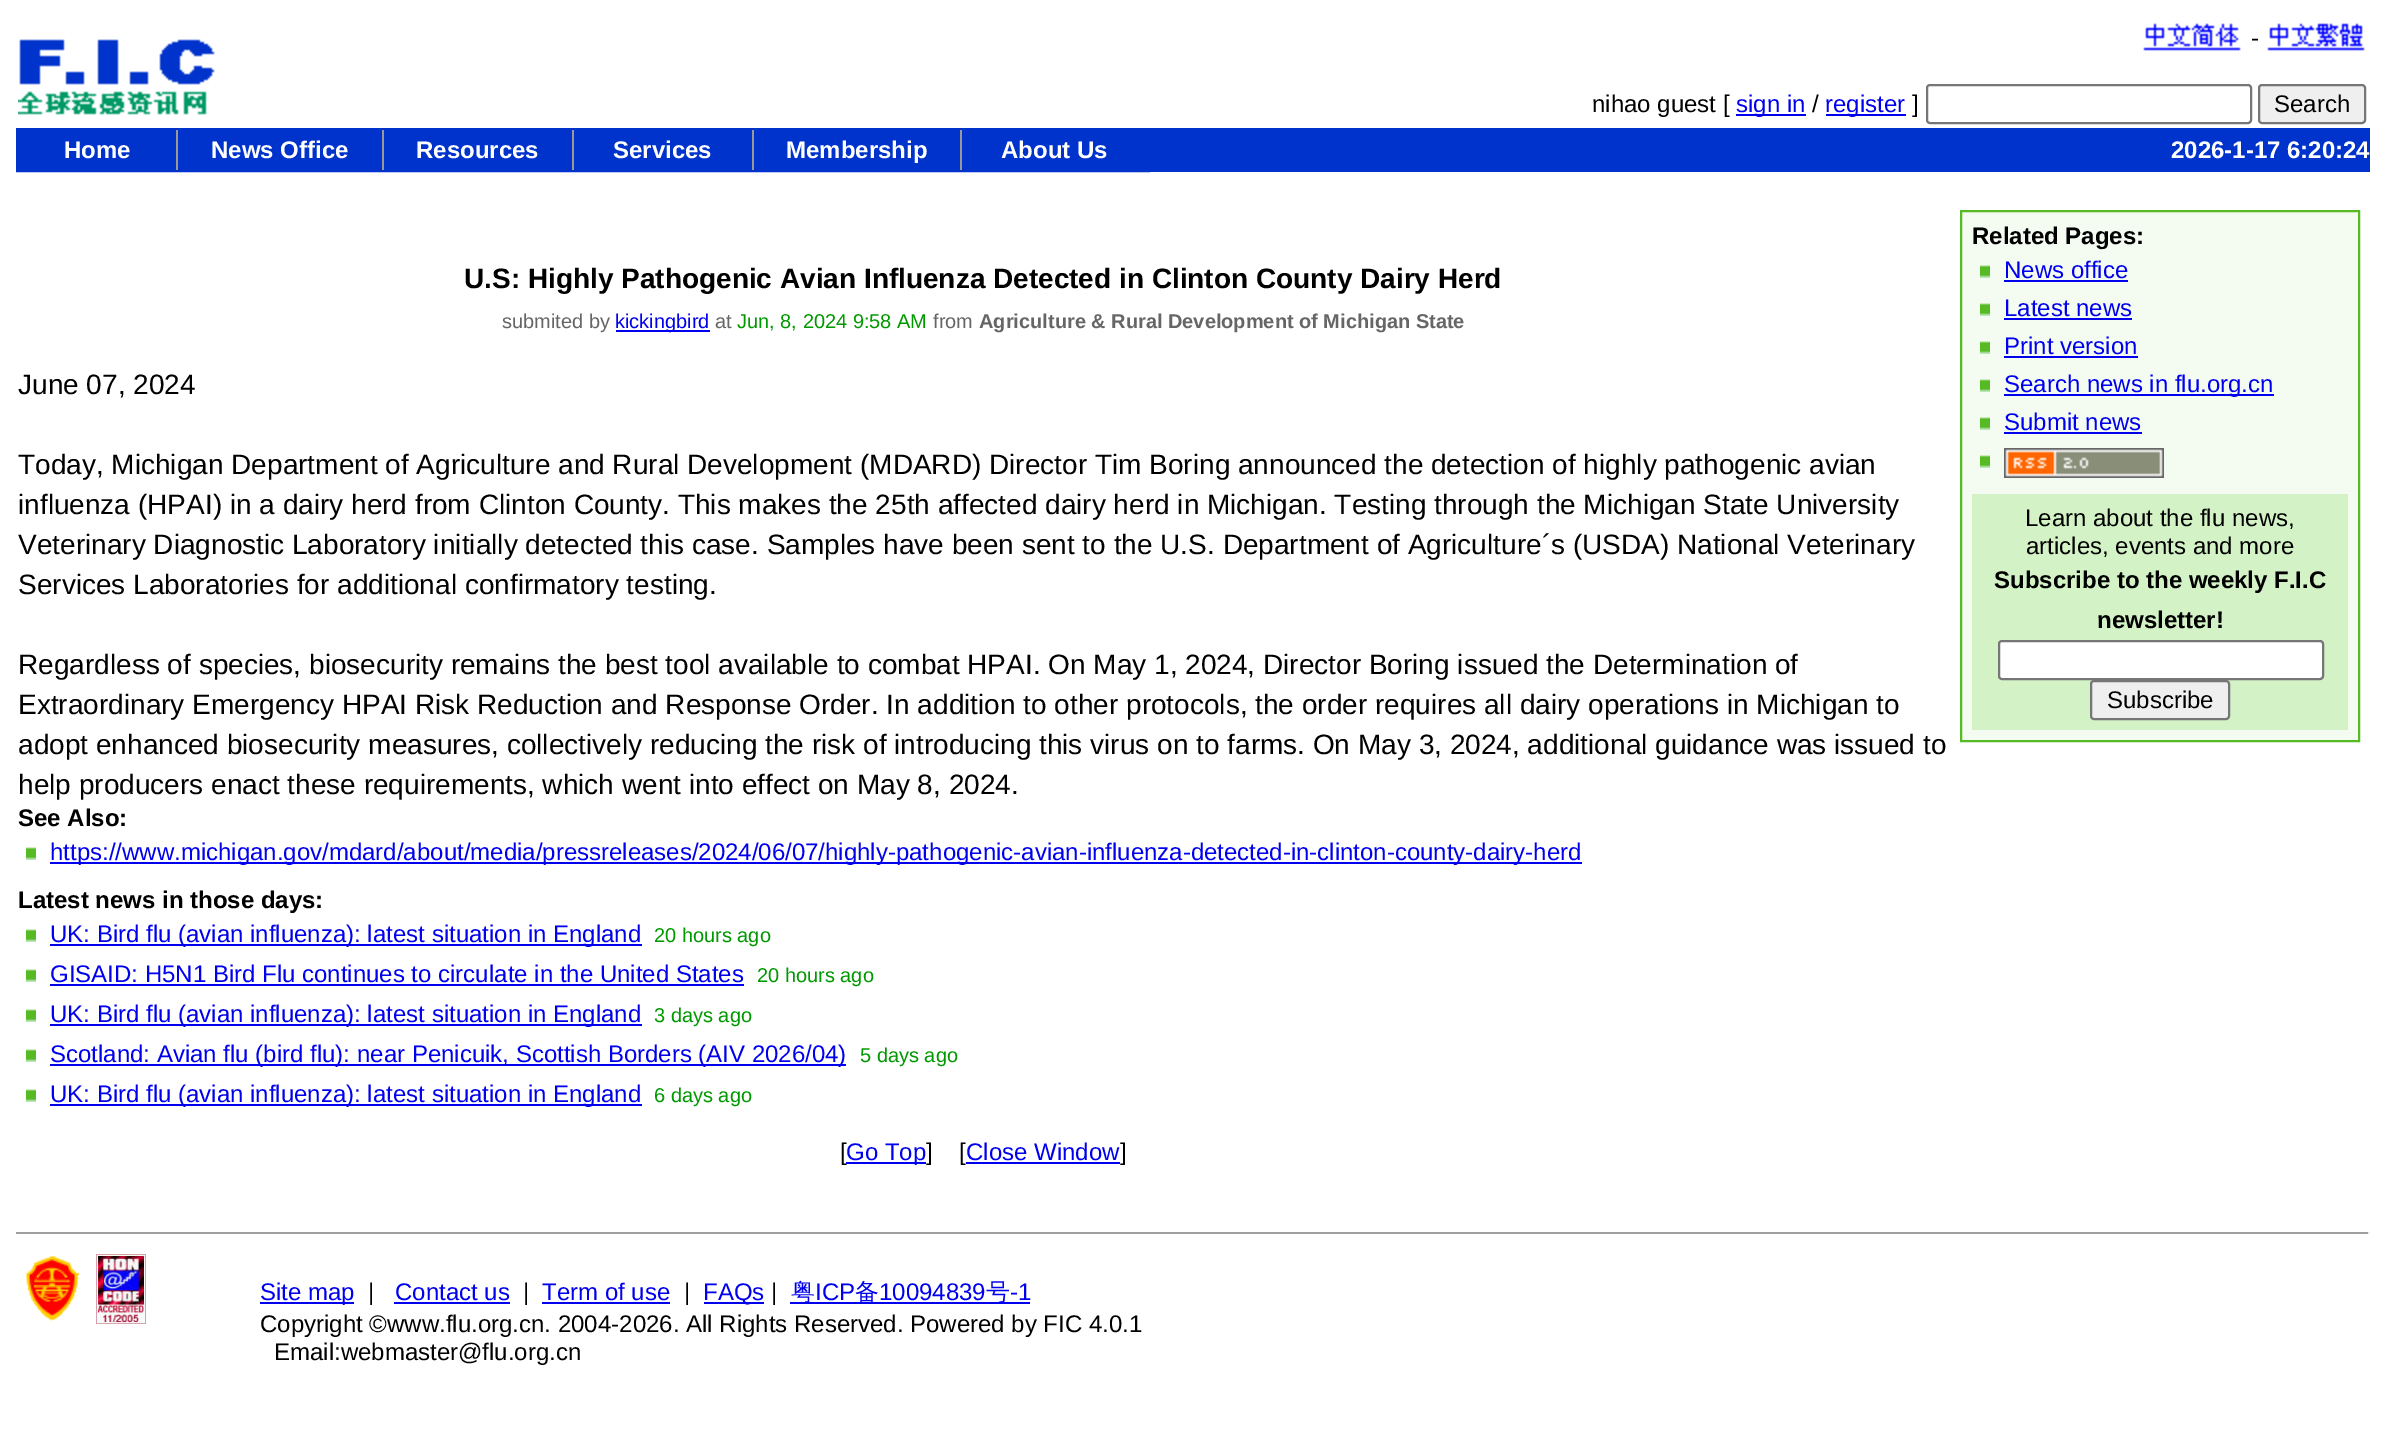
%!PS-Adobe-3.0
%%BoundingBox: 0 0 2386 1453
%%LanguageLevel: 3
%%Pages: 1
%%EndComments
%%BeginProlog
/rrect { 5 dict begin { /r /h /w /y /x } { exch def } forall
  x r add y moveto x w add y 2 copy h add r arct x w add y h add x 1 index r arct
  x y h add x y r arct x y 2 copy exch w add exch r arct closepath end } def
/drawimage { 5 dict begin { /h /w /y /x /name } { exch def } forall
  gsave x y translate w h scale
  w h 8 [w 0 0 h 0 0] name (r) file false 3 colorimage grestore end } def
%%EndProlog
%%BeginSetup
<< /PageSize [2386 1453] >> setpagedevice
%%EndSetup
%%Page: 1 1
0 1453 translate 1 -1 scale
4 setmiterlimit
1 setgray
0 0 2386 1453 rectfill
(images/1.raw) 18 39 197 76 drawimage
(images/2.raw) 2143 23 98 28 drawimage
(images/3.raw) 2267 23 98 28 drawimage
0 0 0.933 setrgbcolor
1736 114 70 2 rectfill
1826 114 80 2 rectfill
0.463 setgray
2 setlinewidth
1927 85 324 38 3 rrect stroke
0.937 setgray
2259 85 106 38 3 rrect gsave fill grestore
0.463 setgray
stroke
0 0.2 0.8 setrgbcolor
1150 128 1220 44 rectfill
17 129 1132 42 rectstroke
18 130 158 40 rectfill
0.6 setgray
176 130 2 40 rectfill
0 0.2 0.8 setrgbcolor
178 130 204 40 rectfill
0.6 setgray
382 130 2 40 rectfill
0 0.2 0.8 setrgbcolor
384 130 188 40 rectfill
0.6 setgray
572 130 2 40 rectfill
0 0.2 0.8 setrgbcolor
574 130 178 40 rectfill
0.6 setgray
752 130 2 40 rectfill
0 0.2 0.8 setrgbcolor
754 130 206 40 rectfill
0.6 setgray
960 130 2 40 rectfill
0 0.2 0.8 setrgbcolor
962 130 186 40 rectfill
0 0 0.933 setrgbcolor
616 330 94 2 rectfill
(images/4.raw) 26 847 10 13 drawimage
50 862 1532 2 rectfill
(images/4.raw) 26 929 10 13 drawimage
50 944 592 2 rectfill
(images/4.raw) 26 969 10 13 drawimage
50 984 694 2 rectfill
(images/4.raw) 26 1009 10 13 drawimage
50 1024 592 2 rectfill
(images/4.raw) 26 1049 10 13 drawimage
50 1064 796 2 rectfill
(images/4.raw) 26 1089 10 13 drawimage
50 1104 592 2 rectfill
0.957 0.988 0.945 setrgbcolor
newpath 1961 211 moveto 2359 211 lineto 2359 741 lineto 1961 741 lineto closepath gsave fill grestore
0.337 0.729 0.141 setrgbcolor
stroke
(images/5.raw) 1980 265 10 13 drawimage
0 0 0.933 setrgbcolor
2004 280 124 2 rectfill
(images/5.raw) 1980 303 10 13 drawimage
2004 318 128 2 rectfill
(images/5.raw) 1980 341 10 13 drawimage
2004 356 134 2 rectfill
(images/5.raw) 1980 379 10 13 drawimage
2004 394 270 2 rectfill
(images/5.raw) 1980 417 10 13 drawimage
2004 432 138 2 rectfill
(images/5.raw) 1980 455 10 13 drawimage
(images/6.raw) 2004 448 160 30 drawimage
0.827 0.953 0.78 setrgbcolor
1972 494 376 236 rectfill
1 setgray
1999 641 324 38 3 rrect gsave fill grestore
0.463 setgray
stroke
0.937 setgray
2091 681 138 38 3 rrect gsave fill grestore
0.463 setgray
stroke
0.624 setgray
16 1232 2354 2 rectfill
0.933 setgray
2368 1232 2 2 rectfill
(images/7.raw) 26 1256 54 66 drawimage
(images/8.raw) 96 1254 50 70 drawimage
0 0 0.933 setrgbcolor
260 1302 94 2 rectfill
394 1302 116 2 rectfill
542 1302 128 2 rectfill
704 1302 60 2 rectfill
790 1302 240 2 rectfill
/LiberationSans-Regular [24 0 0 -24 0 0] selectfont
0 setgray
2251 46 moveto (-) show
1592 112 moveto (nihao guest [) show
0 0 0.933 setrgbcolor
1736 112 moveto (sign in) show
0 setgray
1812 112 moveto (/) show
0 0 0.933 setrgbcolor
1825 112 moveto (register) show
0 setgray
1912 112 moveto (]) show
2274 112 moveto (Search) show
/LiberationSans-Bold [24 0 0 -24 0 0] selectfont
1 setgray
64 158 moveto (Home) show
211 158 moveto (News Office) show
416 158 moveto (Resources) show
613 158 moveto (Services) show
786 158 moveto (Membership) show
1001 158 moveto (About Us) show
2171 158 moveto (2026-1-17 6:20:24) show
/LiberationSans-Bold [28 0 0 -28 0 0] selectfont
0 setgray
464 288 moveto (U.S: Highly Pathogenic Avian Influenza Detected in Clinton County Dairy Herd) show
/LiberationSans-Regular [20 0 0 -20 0 0] selectfont
0.4 setgray
502 328 moveto (submited by) show
0 0 0.933 setrgbcolor
615 328 moveto (kickingbird) show
0.4 setgray
715 328 moveto (at) show
0 0.6 0 setrgbcolor
737 328 moveto (Jun, 8, 2024 9:58 AM) show
0.4 setgray
933 328 moveto (from) show
/LiberationSans-Bold [20 0 0 -20 0 0] selectfont
979 328 moveto (Agriculture & Rural Development of Michigan State) show
/LiberationSans-Regular [28 0 0 -28 0 0] selectfont
0 setgray
18 394 moveto (June 07, 2024) show
18 474 moveto (Today, Michigan Department of Agriculture and Rural Development \(MDARD\) Director Tim Boring announced the detection of highly pathogenic avian) show
18 514 moveto (influenza \(HPAI\) in a dairy herd from Clinton County. This makes the 25th affected dairy herd in Michigan. Testing through the Michigan State University) show
18 554 moveto (Veterinary Diagnostic Laboratory initially detected this case. Samples have been sent to the U.S. Department of Agriculture´s \(USDA\) National Veterinary) show
18 594 moveto (Services Laboratories for additional confirmatory testing.) show
18 674 moveto (Regardless of species, biosecurity remains the best tool available to combat HPAI. On May 1, 2024, Director Boring issued the Determination of) show
18 714 moveto (Extraordinary Emergency HPAI Risk Reduction and Response Order. In addition to other protocols, the order requires all dairy operations in Michigan to) show
18 754 moveto (adopt enhanced biosecurity measures, collectively reducing the risk of introducing this virus on to farms. On May 3, 2024, additional guidance was issued to) show
18 794 moveto (help producers enact these requirements, which went into effect on May 8, 2024.) show
/LiberationSans-Bold [24 0 0 -24 0 0] selectfont
18 826 moveto (See Also:) show
/LiberationSans-Regular [24 0 0 -24 0 0] selectfont
0 0 0.933 setrgbcolor
50 860 moveto (https://www.michigan.gov/mdard/about/media/pressreleases/2024/06/07/highly-pathogenic-avian-influenza-detected-in-clinton-county-dairy-herd) show
/LiberationSans-Bold [24 0 0 -24 0 0] selectfont
0 setgray
18 908 moveto (Latest news in those days:) show
/LiberationSans-Regular [24 0 0 -24 0 0] selectfont
0 0 0.933 setrgbcolor
50 942 moveto (UK: Bird flu \(avian influenza\): latest situation in England) show
/LiberationSans-Regular [20 0 0 -20 0 0] selectfont
0 0.6 0 setrgbcolor
654 942 moveto (20 hours ago) show
/LiberationSans-Regular [24 0 0 -24 0 0] selectfont
0 0 0.933 setrgbcolor
50 982 moveto (GISAID: H5N1 Bird Flu continues to circulate in the United States) show
/LiberationSans-Regular [20 0 0 -20 0 0] selectfont
0 0.6 0 setrgbcolor
757 982 moveto (20 hours ago) show
/LiberationSans-Regular [24 0 0 -24 0 0] selectfont
0 0 0.933 setrgbcolor
50 1022 moveto (UK: Bird flu \(avian influenza\): latest situation in England) show
/LiberationSans-Regular [20 0 0 -20 0 0] selectfont
0 0.6 0 setrgbcolor
654 1022 moveto (3 days ago) show
/LiberationSans-Regular [24 0 0 -24 0 0] selectfont
0 0 0.933 setrgbcolor
50 1062 moveto (Scotland: Avian flu \(bird flu\): near Penicuik, Scottish Borders \(AIV 2026/04\)) show
/LiberationSans-Regular [20 0 0 -20 0 0] selectfont
0 0.6 0 setrgbcolor
860 1062 moveto (5 days ago) show
/LiberationSans-Regular [24 0 0 -24 0 0] selectfont
0 0 0.933 setrgbcolor
50 1102 moveto (UK: Bird flu \(avian influenza\): latest situation in England) show
/LiberationSans-Regular [20 0 0 -20 0 0] selectfont
0 0.6 0 setrgbcolor
654 1102 moveto (6 days ago) show
/LiberationSans-Regular [24 0 0 -24 0 0] selectfont
0 setgray
840 1160 moveto ([) show
0 0 0.933 setrgbcolor
846 1162 80 2 rectfill
846 1160 moveto (Go Top) show
0 setgray
926 1160 moveto (]    [) show
0 0 0.933 setrgbcolor
966 1160 moveto (Close Window) show
966 1162 154 2 rectfill
0 setgray
1120 1160 moveto (]) show
/LiberationSans-Bold [24 0 0 -24 0 0] selectfont
1972 244 moveto (Related Pages:) show
/LiberationSans-Regular [24 0 0 -24 0 0] selectfont
0 0 0.933 setrgbcolor
2004 278 moveto (News office) show
2004 316 moveto (Latest news) show
2004 354 moveto (Print version) show
2004 392 moveto (Search news in flu.org.cn) show
2004 430 moveto (Submit news) show
0 setgray
2025 526 moveto (Learn about the flu news,) show
2026 554 moveto (articles, events and more) show
/LiberationSans-Bold [24 0 0 -24 0 0] selectfont
1994 588 moveto (Subscribe to the weekly F.I.C) show
2097 628 moveto (newsletter!) show
/LiberationSans-Regular [24 0 0 -24 0 0] selectfont
2107 708 moveto (Subscribe) show
0 0 0.933 setrgbcolor
260 1300 moveto (Site map) show
0 setgray
368 1300 moveto (|) show
0 0 0.933 setrgbcolor
395 1300 moveto (Contact us) show
0 setgray
523 1300 moveto (|) show
0 0 0.933 setrgbcolor
542 1300 moveto (Term of use) show
0 setgray
684 1300 moveto (|) show
0 0 0.933 setrgbcolor
703 1300 moveto (FAQs) show
0 setgray
771 1300 moveto (|) show
/WenQuanYiZenHei-Medium [24 0 0 -24 0 0] selectfont
0 0 0.933 setrgbcolor
791 1300 moveto (粤) show
/LiberationSans-Regular [24 0 0 -24 0 0] selectfont
815 1300 moveto (ICP) show
/WenQuanYiZenHei-Medium [24 0 0 -24 0 0] selectfont
855 1300 moveto (备) show
/LiberationSans-Regular [24 0 0 -24 0 0] selectfont
879 1300 moveto (10094839) show
/WenQuanYiZenHei-Medium [24 0 0 -24 0 0] selectfont
986 1300 moveto (号) show
/LiberationSans-Regular [24 0 0 -24 0 0] selectfont
1010 1300 moveto (-1) show
0 setgray
260 1332 moveto (Copyright ©www.flu.org.cn. 2004-2026. All Rights Reserved. Powered by FIC 4.0.1) show
274 1360 moveto (Email:webmaster@flu.org.cn) show
showpage
%%EOF
